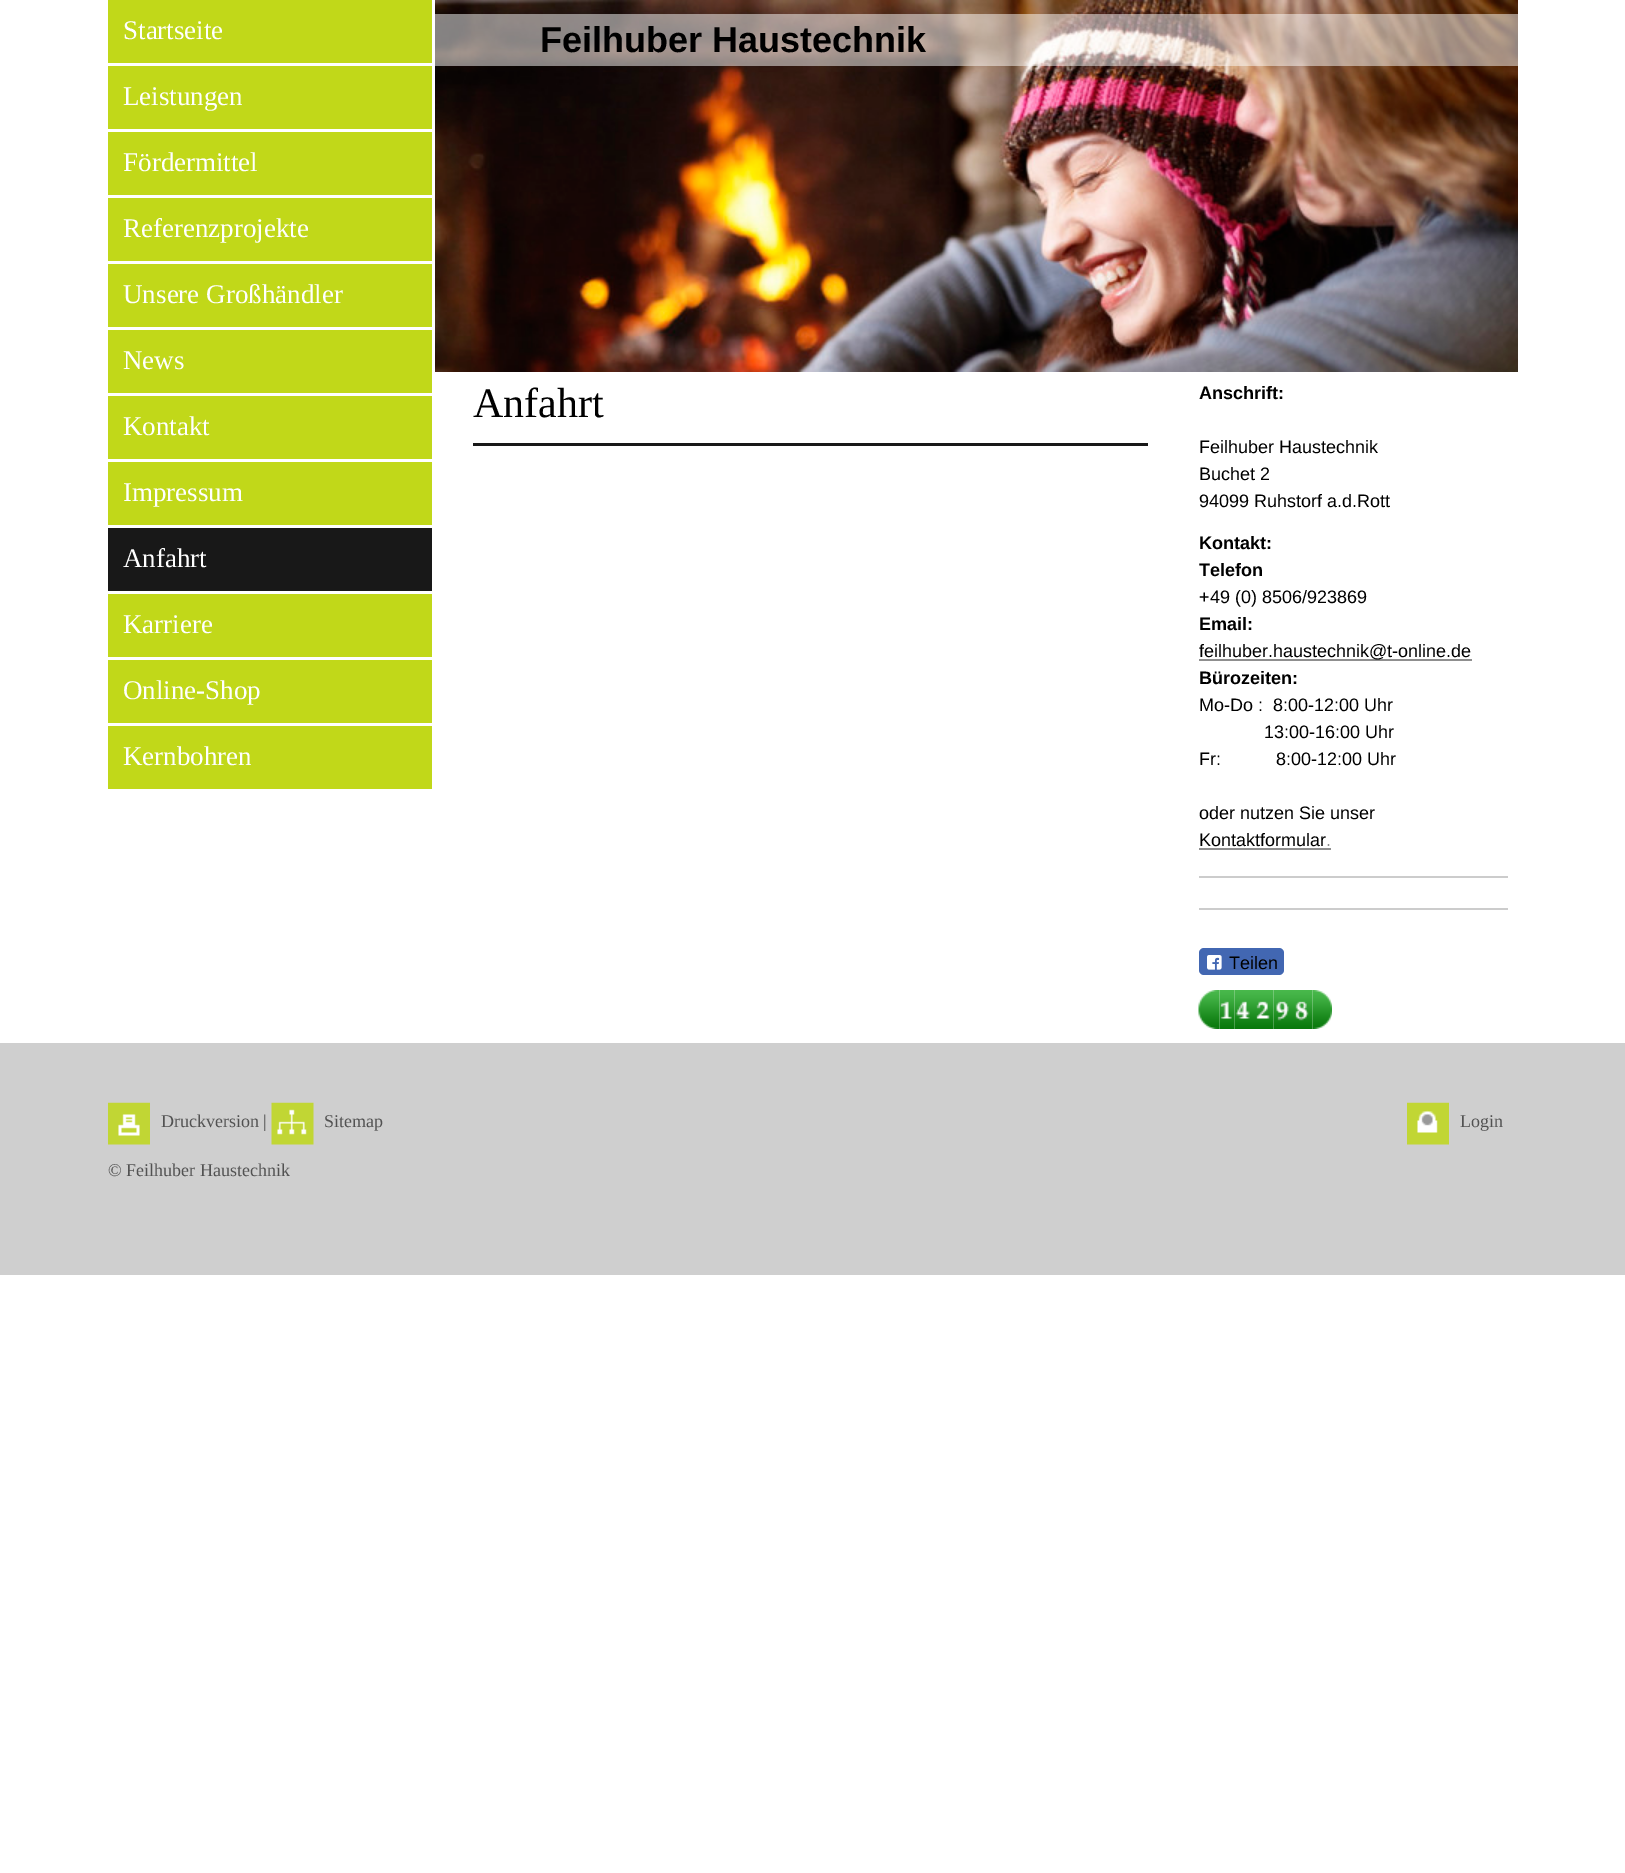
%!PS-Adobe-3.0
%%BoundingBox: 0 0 1625 1873
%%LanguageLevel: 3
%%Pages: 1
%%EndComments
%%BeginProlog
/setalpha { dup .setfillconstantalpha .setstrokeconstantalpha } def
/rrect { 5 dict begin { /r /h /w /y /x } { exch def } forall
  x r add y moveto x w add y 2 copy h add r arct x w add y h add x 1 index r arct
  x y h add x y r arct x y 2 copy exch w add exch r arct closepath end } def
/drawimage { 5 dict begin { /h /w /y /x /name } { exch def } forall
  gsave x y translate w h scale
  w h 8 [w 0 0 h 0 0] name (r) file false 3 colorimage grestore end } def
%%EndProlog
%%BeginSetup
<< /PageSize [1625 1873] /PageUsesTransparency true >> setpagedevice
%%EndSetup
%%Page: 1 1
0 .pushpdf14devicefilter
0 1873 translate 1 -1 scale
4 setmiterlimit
1 setgray
0 0 1625 1873 rectfill
0.757 0.847 0.098 setrgbcolor
108 0 324 63 rectfill
108 66 324 63 rectfill
108 132 324 63 rectfill
108 198 324 63 rectfill
108 264 324 63 rectfill
108 330 324 63 rectfill
108 396 324 63 rectfill
108 462 324 63 rectfill
0.094 setgray
108 528 324 63 rectfill
0.757 0.847 0.098 setrgbcolor
108 594 324 63 rectfill
108 660 324 63 rectfill
108 726 324 63 rectfill
(images/1.raw) 435 0 1083 372 drawimage
0.5 setalpha
1 setgray
435 14 1083 52 rectfill
1 setalpha
0.094 setgray
473 443 675 3 rectfill
0.561 setgray
1199 659 273 2 rectfill
1199 848 132 2 rectfill
0.8 setgray
1199 876 309 2 rectfill
1199 908 309 2 rectfill
0.259 0.404 0.698 setrgbcolor
1199 948 85 27 5 rrect fill
(images/2.raw) 1207 955 15 15 drawimage
(images/3.raw) 1198 990 22 39 drawimage
(images/4.raw) 1219 990 16 39 drawimage
(images/5.raw) 1234 990 20 39 drawimage
(images/6.raw) 1254 990 20 39 drawimage
(images/7.raw) 1273 990 20 39 drawimage
(images/8.raw) 1293 990 20 39 drawimage
(images/9.raw) 1312 990 20 39 drawimage
0.812 setgray
0 1043 1625 232 rectfill
(images/10.raw) 108 1102 42 43 drawimage
(images/11.raw) 271 1102 43 43 drawimage
(images/12.raw) 1407 1102 42 43 drawimage
/LiberationSerif-Regular [27 0 0 -27 0 0] selectfont
1 setgray
123 39 moveto (Startseite) show
123 105 moveto (Leistungen) show
123 171 moveto (Fördermittel) show
123 237 moveto (Referenzprojekte) show
123 303 moveto (Unsere Großhändler) show
123 369 moveto (News) show
123 435 moveto (Kontakt) show
123 501 moveto (Impressum) show
123 567 moveto (Anfahrt) show
123 633 moveto (Karriere) show
123 699 moveto (Online-Shop) show
123 765 moveto (Kernbohren) show
/LiberationSans-Bold [36 0 0 -36 0 0] selectfont
0 setgray
540 52 moveto (Feilhuber Haustechnik) show
/LiberationSerif-Regular [42 0 0 -42 0 0] selectfont
473 417 moveto (Anfahrt) show
/LiberationSans-Bold [18 0 0 -18 0 0] selectfont
1199 399 moveto (Anschrift:) show
/LiberationSans-Regular [18 0 0 -18 0 0] selectfont
1199 453 moveto (Feilhuber Haustechnik) show
1199 480 moveto (Buchet 2) show
1199 507 moveto (94099 Ruhstorf a.d.Rott) show
/LiberationSans-Bold [18 0 0 -18 0 0] selectfont
1199 549 moveto (Kontakt:) show
1199 576 moveto (Telefon) show
/LiberationSans-Regular [18 0 0 -18 0 0] selectfont
1199 603 moveto (+49 \(0\) 8506/923869) show
/LiberationSans-Bold [18 0 0 -18 0 0] selectfont
1199 630 moveto (Email:) show
/LiberationSans-Regular [18 0 0 -18 0 0] selectfont
1199 657 moveto (feilhuber.haustechnik@t-online.de) show
/LiberationSans-Bold [18 0 0 -18 0 0] selectfont
1199 684 moveto (Bürozeiten:) show
/LiberationSans-Regular [18 0 0 -18 0 0] selectfont
1199 711 moveto (Mo-Do :  8:00-12:00 Uhr) show
1264 738 moveto (13:00-16:00 Uhr) show
1199 765 moveto (Fr:           8:00-12:00 Uhr) show
1199 819 moveto (oder nutzen Sie unser) show
1199 846 moveto (Kontaktformular) show
0.561 setgray
1326 846 moveto (.) show
0 setgray
1229 969 moveto (Teilen) show
/LiberationSerif-Regular [18 0 0 -18 0 0] selectfont
0.322 setgray
161 1127 moveto (Druckversion |) show
324 1127 moveto (Sitemap) show
108 1176 moveto (© Feilhuber Haustechnik) show
1460 1127 moveto (Login) show
.poppdf14devicefilter showpage
%%EOF
